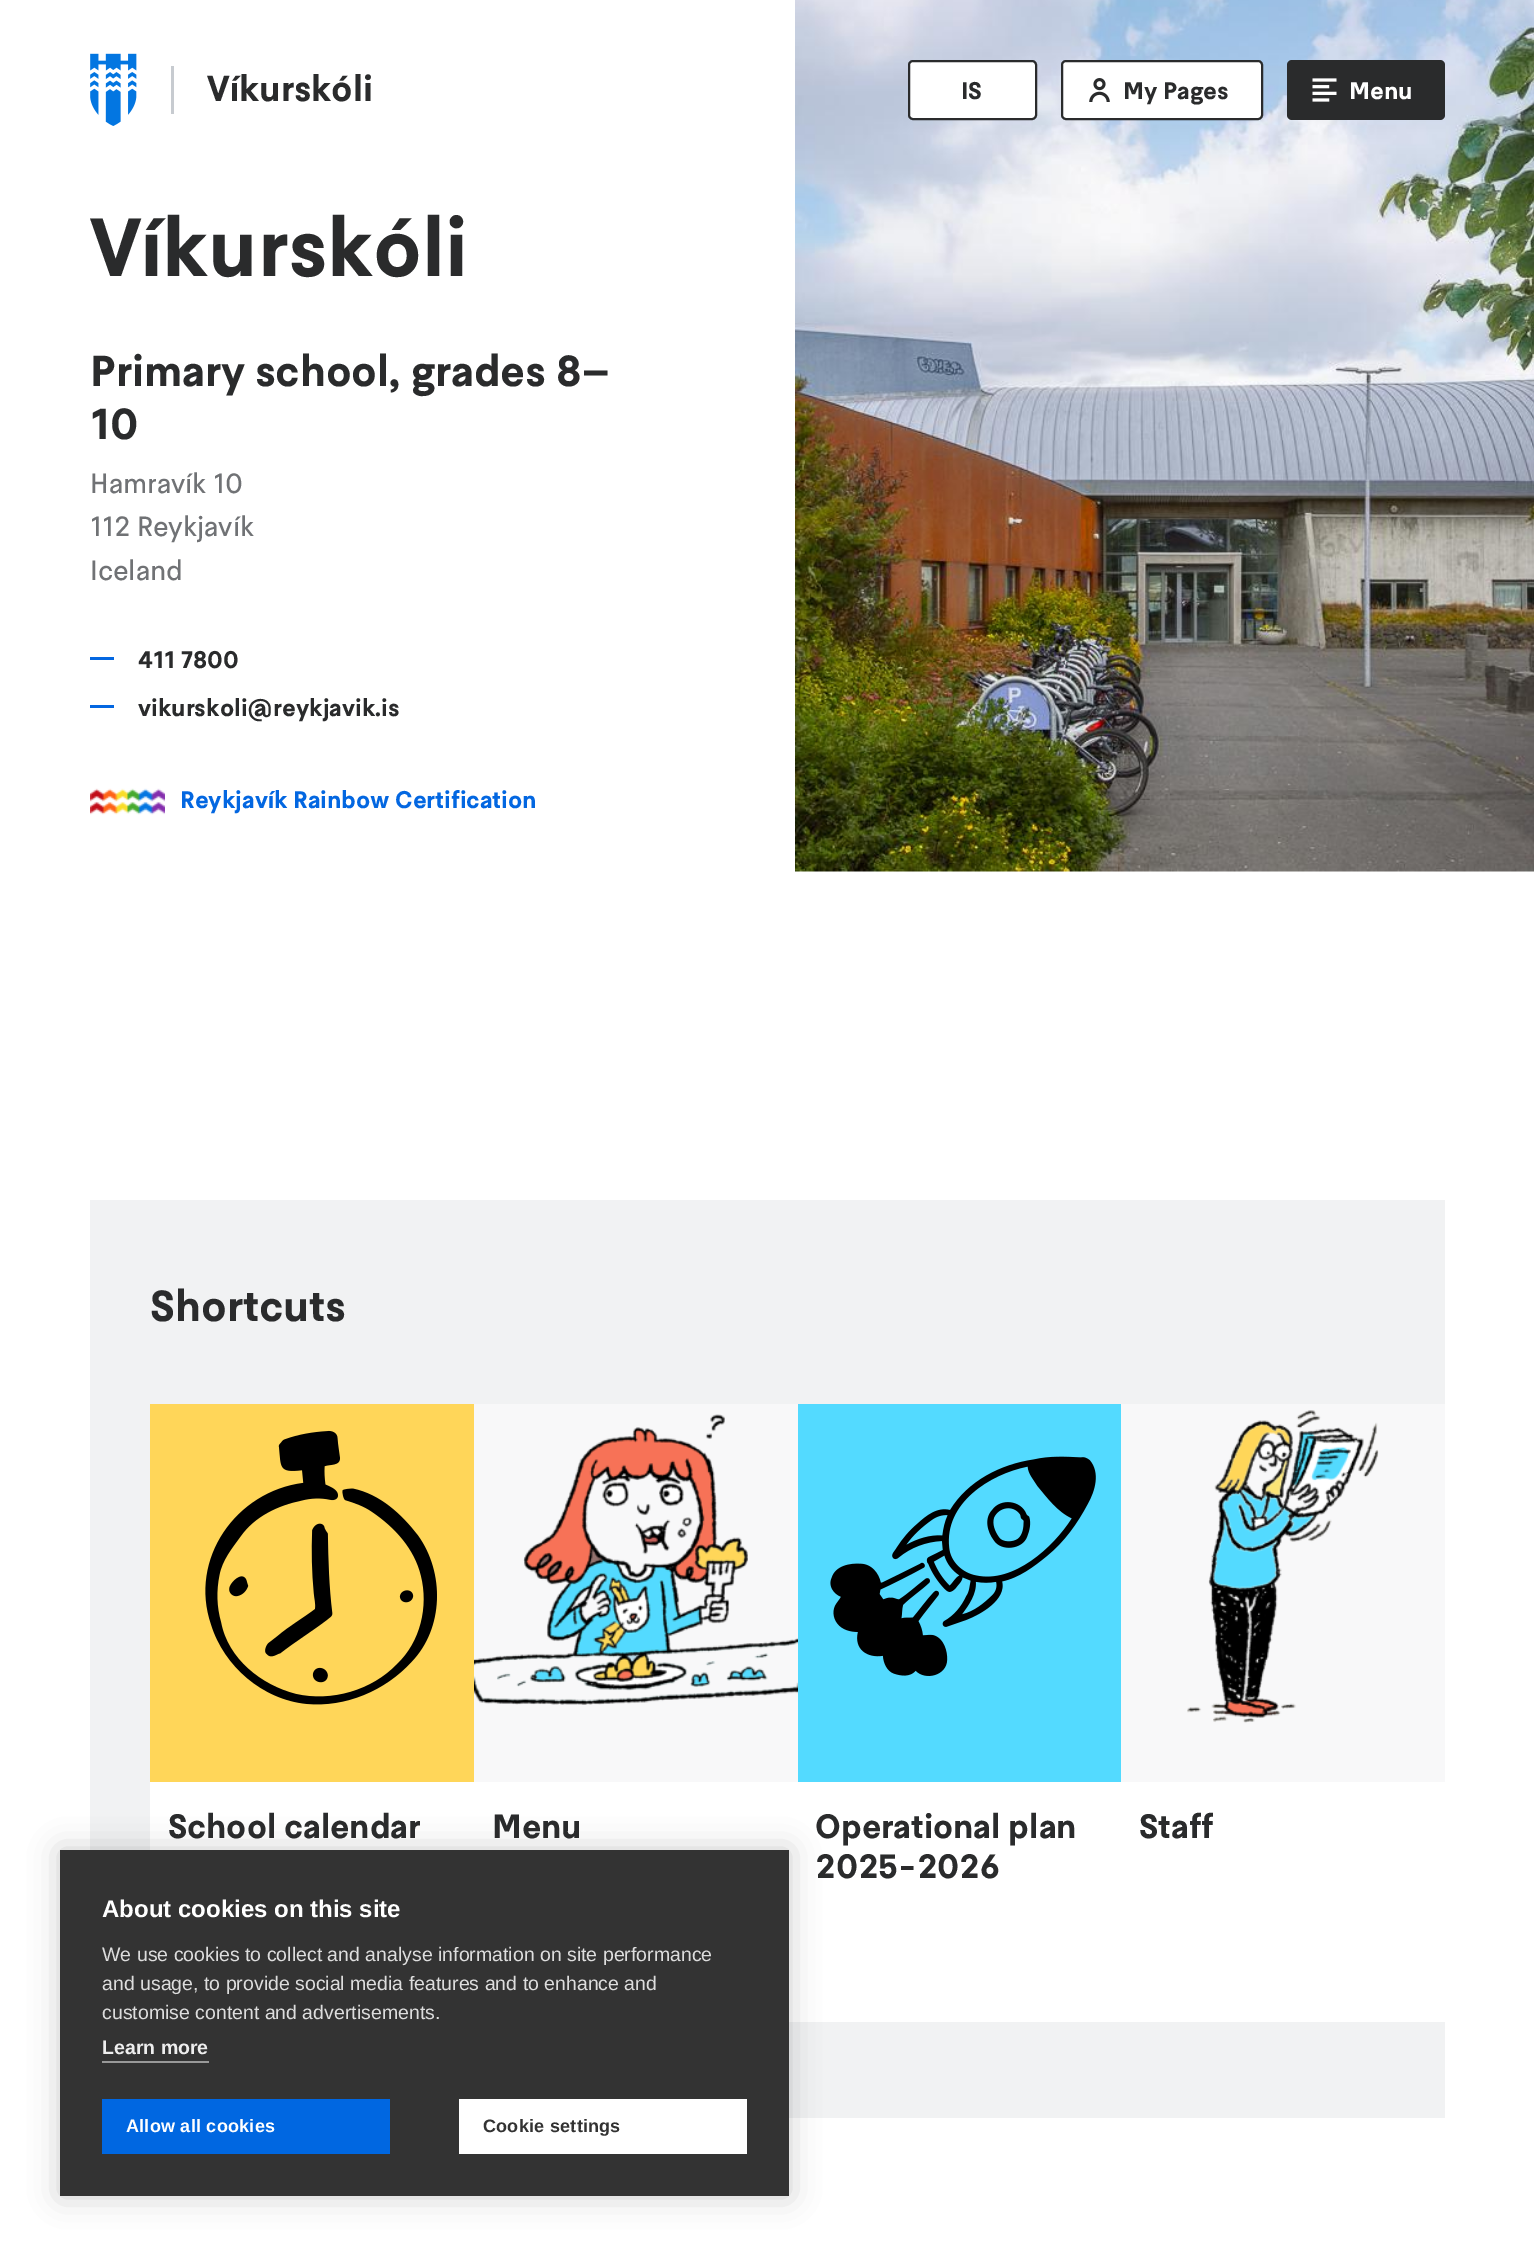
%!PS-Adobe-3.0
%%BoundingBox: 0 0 1534 2256
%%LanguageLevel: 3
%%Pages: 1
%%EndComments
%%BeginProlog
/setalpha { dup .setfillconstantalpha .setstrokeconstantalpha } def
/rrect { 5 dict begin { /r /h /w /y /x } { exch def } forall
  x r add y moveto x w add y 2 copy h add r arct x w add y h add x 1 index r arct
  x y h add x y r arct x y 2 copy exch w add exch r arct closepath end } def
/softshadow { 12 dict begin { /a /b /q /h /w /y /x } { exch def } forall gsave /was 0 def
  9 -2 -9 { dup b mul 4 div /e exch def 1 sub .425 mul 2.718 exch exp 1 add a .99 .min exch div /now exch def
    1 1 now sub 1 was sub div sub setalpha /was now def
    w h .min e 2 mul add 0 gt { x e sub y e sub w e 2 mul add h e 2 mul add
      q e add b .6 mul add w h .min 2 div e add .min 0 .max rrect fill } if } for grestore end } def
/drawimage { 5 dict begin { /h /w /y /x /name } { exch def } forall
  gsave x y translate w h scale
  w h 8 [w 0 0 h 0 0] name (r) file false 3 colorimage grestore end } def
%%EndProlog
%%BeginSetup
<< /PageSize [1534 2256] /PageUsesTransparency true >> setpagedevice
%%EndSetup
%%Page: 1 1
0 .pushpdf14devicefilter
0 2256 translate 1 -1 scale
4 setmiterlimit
1 setgray
0 0 1534 2256 rectfill
(images/1.raw) 90 53 47 73 drawimage
0.78 0.796 0.816 setrgbcolor
171 66 3 48 rectfill
(images/5.raw) 795 0 739 872 drawimage
1 setgray
909 61 127 58 4 rrect gsave fill grestore
0.165 0.169 0.173 setrgbcolor
2 setlinewidth
stroke
1 setgray
1062 61 200 58 4 rrect gsave fill grestore
0.165 0.169 0.173 setrgbcolor
stroke
(images/2.raw) 1089 78 21 24 drawimage
1287 60 158 60 5 rrect fill
(images/3.raw) 1312 78 25 24 drawimage
0.012 0.404 0.882 setrgbcolor
90 657 24 3 rectfill
90 705 24 3 rectfill
(images/4.raw) 90 788 75 27 drawimage
0.945 0.949 0.953 setrgbcolor
90 1200 1355 918 rectfill
1 setgray
150 1782 324 68 rectfill
1 0.839 0.349 setrgbcolor
150 1404 324 378 rectfill
(images/6.raw) 205 1430 232 275 drawimage
1 setgray
474 1782 971 240 rectfill
0.973 0.973 0.976 setrgbcolor
474 1404 324 378 rectfill
(images/7.raw) 474 1414 324 291 drawimage
0.325 0.855 1 setrgbcolor
798 1404 323 378 rectfill
(images/8.raw) 830 1456 266 220 drawimage
0.973 0.973 0.976 setrgbcolor
1121 1404 324 378 rectfill
(images/9.raw) 1187 1410 192 313 drawimage
0 setgray
60 1850 729 346 0 15 0.2 softshadow
0.2 setgray
60 1850 729 346 rectfill
0.6 setgray
102 2061 107 2 rectfill
0 0.404 0.882 setrgbcolor
102 2099 288 55 rectfill
1 setgray
459 2099 288 55 rectfill
/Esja-Bold [36 0 0 -36 0 0] selectfont
0.165 0.169 0.173 setrgbcolor
207 101 moveto (Víkurskóli) show
/Esja-Bold [24 0 0 -24 0 0] selectfont
961 99 moveto (IS) show
1123 99 moveto (My Pages) show
1 setgray
1349 99 moveto (Menu) show
/Esja-Bold [82 0 0 -82 0 0] selectfont
0.165 0.169 0.173 setrgbcolor
90 276 moveto (Víkurskóli) show
/Esja-Bold [43.3 0 0 -43.3 0 0] selectfont
90 386 moveto (Primary school, grades 8–) show
90 439 moveto (10) show
/Esja-Regular [27.75 0 0 -27.75 0 0] selectfont
0.439 0.447 0.459 setrgbcolor
90 493 moveto (Hamravík 10) show
90 536 moveto (112 Reykjavík) show
90 580 moveto (Iceland) show
/Esja-Bold [24 0 0 -24 0 0] selectfont
0.165 0.169 0.173 setrgbcolor
138 668 moveto (411 7800) show
138 716 moveto (vikurskoli@reykjavik.is) show
0.012 0.404 0.882 setrgbcolor
180 808 moveto (Reykjavík Rainbow Certification) show
/Esja-Bold [43.3 0 0 -43.3 0 0] selectfont
0.165 0.169 0.173 setrgbcolor
150 1321 moveto (Shortcuts) show
/Esja-Bold [33.75 0 0 -33.75 0 0] selectfont
168 1838 moveto (School calendar) show
492 1838 moveto (Menu) show
815 1838 moveto (Operational plan) show
815 1878 moveto (2025-2026) show
1139 1838 moveto (Staff) show
/LiberationSans-Bold [24 0 0 -24 0 0] selectfont
1 setgray
102 1917 moveto (About cookies on this site) show
/LiberationSans-Regular [19.5 0 0 -19.5 0 0] selectfont
0.867 setgray
102 1961 moveto (We use cookies to collect and analyse information on site performance) show
102 1990 moveto (and usage, to provide social media features and to enhance and) show
102 2019 moveto (customise content and advertisements.) show
/LiberationSans-Bold [19.5 0 0 -19.5 0 0] selectfont
0.933 setgray
102 2054 moveto (Learn more) show
/LiberationSans-Bold [18 0 0 -18 0 0] selectfont
1 setgray
126 2132 moveto 0.25 0 (Allow all cookies) ashow
0.2 setgray
483 2132 moveto 0.25 0 (Cookie settings) ashow
.poppdf14devicefilter showpage
%%EOF
